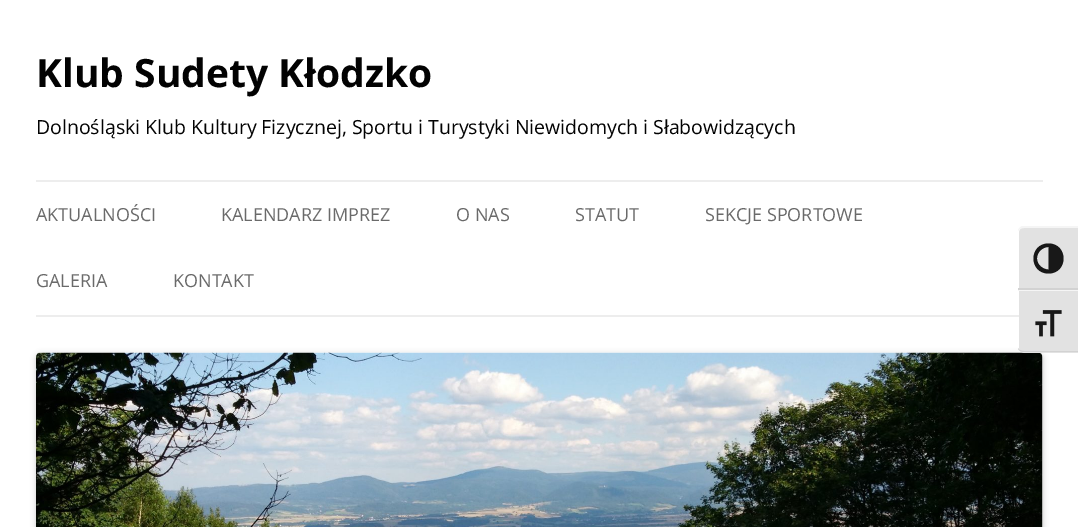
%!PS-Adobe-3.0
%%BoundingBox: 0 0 1078 527
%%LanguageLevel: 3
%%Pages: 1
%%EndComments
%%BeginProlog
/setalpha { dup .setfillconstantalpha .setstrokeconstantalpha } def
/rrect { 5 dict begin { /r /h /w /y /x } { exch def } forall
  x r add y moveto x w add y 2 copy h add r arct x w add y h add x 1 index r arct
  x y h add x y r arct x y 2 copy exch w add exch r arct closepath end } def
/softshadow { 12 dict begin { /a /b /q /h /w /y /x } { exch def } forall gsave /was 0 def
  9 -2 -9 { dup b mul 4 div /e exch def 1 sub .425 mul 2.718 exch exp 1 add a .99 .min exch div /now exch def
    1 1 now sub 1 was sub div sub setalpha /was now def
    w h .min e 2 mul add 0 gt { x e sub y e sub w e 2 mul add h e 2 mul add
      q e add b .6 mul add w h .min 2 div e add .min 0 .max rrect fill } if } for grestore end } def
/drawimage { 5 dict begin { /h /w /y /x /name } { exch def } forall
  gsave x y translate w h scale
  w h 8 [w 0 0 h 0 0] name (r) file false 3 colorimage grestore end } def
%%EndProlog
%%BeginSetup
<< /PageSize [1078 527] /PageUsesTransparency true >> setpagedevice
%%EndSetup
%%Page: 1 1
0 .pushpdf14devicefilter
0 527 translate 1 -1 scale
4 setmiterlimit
1 setgray
0 0 1078 527 rectfill
0.929 setgray
36 180 1007 2 rectfill
36 315 983 2 rectfill
0 setgray
36 354 1007 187 5 3 0.2 softshadow
(images/1.raw) 36 352 1007 175 drawimage
0.886 setgray
newpath 1025 227 moveto 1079 227 lineto 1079 290 lineto 1019 290 lineto 1019 233 lineto 1019 229.5 1021.5 227 1025 227 curveto closepath fill
0.961 setgray
newpath 1024 228 moveto 1022 228 1019 229 1018 231 curveto 1018 230 lineto 1019 228 1020 227 1022 226 curveto 1078 226 lineto 1078 228 lineto closepath fill
0.824 setgray
1018 288 60 2 rectfill
0.094 setgray
newpath 1048.5 243.5 moveto 1028.5 243.5 1028.5 273.5 1048.5 273.5 curveto 1068.5 273.5 1068.5 243.5 1048.5 243.5 curveto closepath 1037 258.5 moveto 1037 252 1042.5 247 1048.5 247 curveto 1048.5 269.5 lineto 1042.5 269.5 1037 264.5 1037 258.5 curveto closepath fill
0.886 setgray
newpath 1019 290 moveto 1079 290 lineto 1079 353 lineto 1025 353 lineto 1021.5 353 1019 350.5 1019 347 curveto closepath fill
0.961 setgray
1018 290 60 1 rectfill
0.824 setgray
newpath 1078 352 moveto 1078 351 lineto 1024 351 lineto 1022 351 1019 350 1018 348 curveto 1018 349 lineto 1019 351 1022 352 1024 352 curveto closepath fill
(images/2.raw) 1035 310 27 27 drawimage
/OpenSans-Bold [39 0 0 -39 0 0] selectfont
0.008 setgray
36 87 moveto (Klub Sudety Kłodzko) show
/OpenSans-Regular [19.5 0 0 -19.5 0 0] selectfont
36 134 moveto (Dolnośląski Klub Kultury Fizycznej, Sportu i Turystyki Niewidomych i Słabowidzących) show
/OpenSans-Regular [18 0 0 -18 0 0] selectfont
0.416 setgray
36 221 moveto (AKTUALNOŚCI) show
221 221 moveto (KALENDARZ IMPREZ) show
456 221 moveto (O NAS) show
575 221 moveto (STATUT) show
705 221 moveto (SEKCJE SPORTOWE) show
36 287 moveto (GALERIA) show
173 287 moveto (KONTAKT) show
.poppdf14devicefilter showpage
%%EOF
